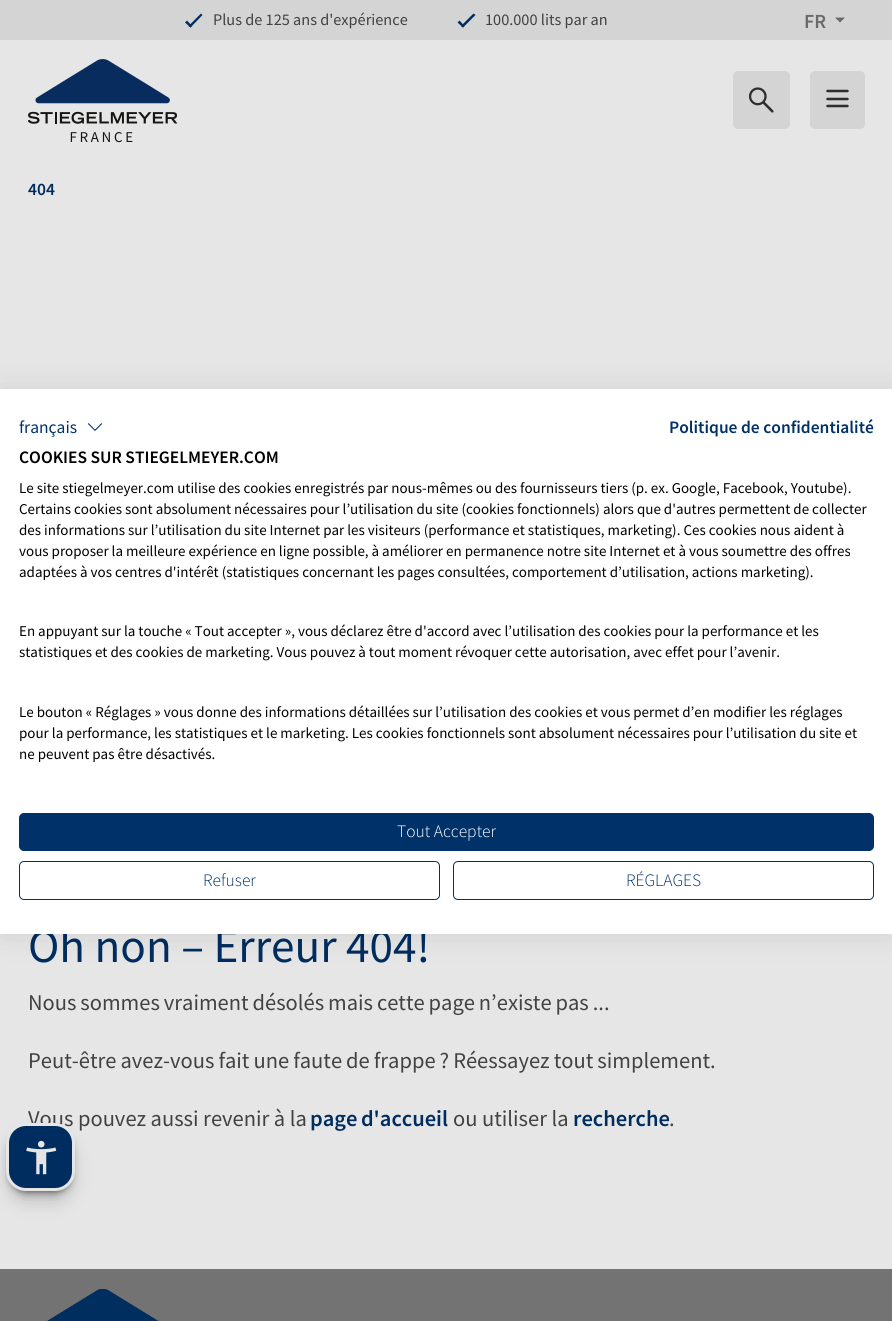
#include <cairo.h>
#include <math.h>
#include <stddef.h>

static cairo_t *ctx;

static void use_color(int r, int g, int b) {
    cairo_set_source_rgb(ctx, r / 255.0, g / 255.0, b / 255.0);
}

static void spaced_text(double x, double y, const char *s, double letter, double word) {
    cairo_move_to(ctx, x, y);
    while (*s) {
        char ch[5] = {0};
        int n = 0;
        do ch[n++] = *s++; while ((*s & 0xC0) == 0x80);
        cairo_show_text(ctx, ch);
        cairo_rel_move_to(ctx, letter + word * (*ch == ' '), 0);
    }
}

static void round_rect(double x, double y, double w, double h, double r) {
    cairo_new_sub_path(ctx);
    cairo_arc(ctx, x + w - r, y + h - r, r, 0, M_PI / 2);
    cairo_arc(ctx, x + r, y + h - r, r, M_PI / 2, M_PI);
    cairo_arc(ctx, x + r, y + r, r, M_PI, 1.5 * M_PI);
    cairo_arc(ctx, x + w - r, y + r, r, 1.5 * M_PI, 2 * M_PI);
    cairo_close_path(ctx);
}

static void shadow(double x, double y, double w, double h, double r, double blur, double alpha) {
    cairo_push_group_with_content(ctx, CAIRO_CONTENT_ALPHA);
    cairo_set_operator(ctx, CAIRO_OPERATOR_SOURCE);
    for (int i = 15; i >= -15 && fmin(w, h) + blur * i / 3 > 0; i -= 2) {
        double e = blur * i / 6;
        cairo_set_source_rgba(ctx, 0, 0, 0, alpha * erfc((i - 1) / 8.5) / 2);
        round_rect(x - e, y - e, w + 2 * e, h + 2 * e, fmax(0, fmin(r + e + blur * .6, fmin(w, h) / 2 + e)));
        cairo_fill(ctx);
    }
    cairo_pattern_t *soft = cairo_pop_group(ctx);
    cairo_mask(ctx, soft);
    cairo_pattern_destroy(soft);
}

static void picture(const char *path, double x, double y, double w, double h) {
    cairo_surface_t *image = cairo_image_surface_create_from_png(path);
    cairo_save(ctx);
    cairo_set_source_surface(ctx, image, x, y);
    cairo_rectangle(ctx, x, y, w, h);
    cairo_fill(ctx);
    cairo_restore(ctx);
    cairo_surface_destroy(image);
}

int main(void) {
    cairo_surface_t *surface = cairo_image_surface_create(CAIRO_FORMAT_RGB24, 892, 1321);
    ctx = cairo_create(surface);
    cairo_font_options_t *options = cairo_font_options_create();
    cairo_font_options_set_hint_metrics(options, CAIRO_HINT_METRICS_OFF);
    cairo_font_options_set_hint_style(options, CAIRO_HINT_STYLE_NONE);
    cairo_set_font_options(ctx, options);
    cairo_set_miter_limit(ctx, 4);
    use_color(230, 230, 230);
    cairo_paint(ctx);
    use_color(212, 212, 212);
    cairo_rectangle(ctx, 0, 0, 892, 40);
    cairo_fill(ctx);
    use_color(0, 45, 95);
    cairo_new_path(ctx);
    cairo_move_to(ctx, 201, 13.5);
    cairo_line_to(ctx, 202.5, 15);
    cairo_line_to(ctx, 190.5, 27.5);
    cairo_line_to(ctx, 188.5, 26);
    cairo_close_path(ctx);
    cairo_fill(ctx);
    cairo_new_path(ctx);
    cairo_move_to(ctx, 187, 20.5);
    cairo_line_to(ctx, 192, 26);
    cairo_line_to(ctx, 190.5, 27.5);
    cairo_line_to(ctx, 185, 22.5);
    cairo_close_path(ctx);
    cairo_fill(ctx);
    cairo_select_font_face(ctx, "Source Sans Pro", CAIRO_FONT_SLANT_NORMAL, CAIRO_FONT_WEIGHT_NORMAL);
    cairo_set_font_size(ctx, 16.25);
    use_color(66, 66, 66);
    cairo_move_to(ctx, 213, 25);
    cairo_show_text(ctx, "Plus de 125 ans d'expérience");
    use_color(0, 45, 95);
    cairo_new_path(ctx);
    cairo_move_to(ctx, 473.5, 13.5);
    cairo_line_to(ctx, 475.5, 15);
    cairo_line_to(ctx, 463, 27.5);
    cairo_line_to(ctx, 461, 26);
    cairo_close_path(ctx);
    cairo_fill(ctx);
    cairo_new_path(ctx);
    cairo_move_to(ctx, 459.5, 20.5);
    cairo_line_to(ctx, 464.5, 26);
    cairo_line_to(ctx, 463, 27.5);
    cairo_line_to(ctx, 457.5, 22.5);
    cairo_close_path(ctx);
    cairo_fill(ctx);
    use_color(66, 66, 66);
    cairo_move_to(ctx, 485, 25);
    cairo_show_text(ctx, "100.000 lits par an");
    cairo_select_font_face(ctx, "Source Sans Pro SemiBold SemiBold", CAIRO_FONT_SLANT_NORMAL, CAIRO_FONT_WEIGHT_NORMAL);
    cairo_set_font_size(ctx, 20);
    use_color(106, 106, 106);
    cairo_move_to(ctx, 804, 28);
    cairo_show_text(ctx, "FR");
    cairo_new_path(ctx);
    cairo_move_to(ctx, 835, 17.5);
    cairo_line_to(ctx, 845, 17.5);
    cairo_line_to(ctx, 840, 22.5);
    cairo_close_path(ctx);
    cairo_fill(ctx);
    picture("img1.png", 28, 59, 150, 84);
    use_color(212, 212, 212);
    round_rect(733, 71, 57, 58, 5);
    cairo_fill(ctx);
    picture("img2.png", 748, 87, 26, 26);
    round_rect(810, 71, 55, 58, 5);
    cairo_fill(ctx);
    cairo_new_path(ctx);
    cairo_move_to(ctx, 827.5, 106);
    cairo_line_to(ctx, 847.5, 106);
    cairo_move_to(ctx, 827.5, 99);
    cairo_line_to(ctx, 847.5, 99);
    cairo_move_to(ctx, 827.5, 91);
    cairo_line_to(ctx, 847.5, 91);
    use_color(46, 46, 46);
    cairo_set_line_width(ctx, 2.5);
    cairo_set_line_cap(ctx, CAIRO_LINE_CAP_ROUND);
    cairo_stroke(ctx);
    cairo_set_font_size(ctx, 17.5);
    use_color(0, 45, 95);
    cairo_move_to(ctx, 28, 195);
    cairo_show_text(ctx, "404");
    cairo_select_font_face(ctx, "Source Sans Pro", CAIRO_FONT_SLANT_NORMAL, CAIRO_FONT_WEIGHT_NORMAL);
    cairo_set_font_size(ctx, 47.25);
    cairo_move_to(ctx, 28, 962);
    cairo_show_text(ctx, "Oh non – Erreur 404!");
    cairo_set_font_size(ctx, 22.5);
    use_color(66, 66, 66);
    spaced_text(28, 1010, "Nous sommes vraiment désolés mais cette page n’existe pas ...", 0, -0.6);
    spaced_text(28, 1068, "Peut-être avez-vous fait une faute de frappe ? Réessayez tout simplement.", 0, -0.5);
    cairo_move_to(ctx, 28, 1126);
    cairo_show_text(ctx, "Vous pouvez aussi revenir à la");
    cairo_select_font_face(ctx, "Source Sans Pro SemiBold SemiBold", CAIRO_FONT_SLANT_NORMAL, CAIRO_FONT_WEIGHT_NORMAL);
    use_color(0, 45, 95);
    spaced_text(310, 1126, "page d'accueil", 0, -1);
    cairo_select_font_face(ctx, "Source Sans Pro", CAIRO_FONT_SLANT_NORMAL, CAIRO_FONT_WEIGHT_NORMAL);
    use_color(66, 66, 66);
    cairo_move_to(ctx, 453, 1126);
    cairo_show_text(ctx, "ou utiliser la");
    cairo_select_font_face(ctx, "Source Sans Pro SemiBold SemiBold", CAIRO_FONT_SLANT_NORMAL, CAIRO_FONT_WEIGHT_NORMAL);
    use_color(0, 45, 95);
    cairo_move_to(ctx, 573, 1126);
    cairo_show_text(ctx, "recherche");
    cairo_select_font_face(ctx, "Source Sans Pro", CAIRO_FONT_SLANT_NORMAL, CAIRO_FONT_WEIGHT_NORMAL);
    use_color(66, 66, 66);
    cairo_move_to(ctx, 669, 1126);
    cairo_show_text(ctx, ".");
    use_color(0, 0, 0);
    shadow(11, 1133, 59, 58, 15, 4, 0.7);
    shadow(10, 1139, 61, 61, 16, 9.5, 0.2);
    use_color(0, 45, 95);
    round_rect(7.5, 1124.5, 66, 65, 18.5);
    cairo_fill_preserve(ctx);
    use_color(230, 230, 230);
    cairo_set_line_width(ctx, 3);
    cairo_set_line_cap(ctx, CAIRO_LINE_CAP_BUTT);
    cairo_stroke(ctx);
    picture("img3.png", 26, 1140, 31, 35);
    use_color(115, 115, 115);
    cairo_rectangle(ctx, 0, 1269, 892, 52);
    cairo_fill(ctx);
    picture("img4.png", 47, 1289, 112, 32);
    use_color(0, 0, 0);
    shadow(0, 389, 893, 545, 0, 15, 0.1);
    use_color(255, 255, 255);
    cairo_rectangle(ctx, 0, 389, 892, 545);
    cairo_fill(ctx);
    cairo_set_font_size(ctx, 17.5);
    use_color(0, 50, 105);
    cairo_move_to(ctx, 19, 433);
    cairo_show_text(ctx, "français");
    picture("img5.png", 87, 423, 16, 8);
    cairo_select_font_face(ctx, "Source Sans Pro SemiBold SemiBold", CAIRO_FONT_SLANT_NORMAL, CAIRO_FONT_WEIGHT_NORMAL);
    cairo_move_to(ctx, 669, 433);
    cairo_show_text(ctx, "Politique de confidentialité");
    use_color(0, 0, 0);
    cairo_move_to(ctx, 19, 463);
    cairo_show_text(ctx, "COOKIES SUR STIEGELMEYER.COM");
    cairo_select_font_face(ctx, "Source Sans Pro", CAIRO_FONT_SLANT_NORMAL, CAIRO_FONT_WEIGHT_NORMAL);
    cairo_set_font_size(ctx, 15);
    cairo_move_to(ctx, 19, 493);
    cairo_show_text(ctx, "Le site stiegelmeyer.com utilise des cookies enregistrés par nous-mêmes ou des fournisseurs tiers (p. ex. Google, Facebook, Youtube).");
    cairo_move_to(ctx, 19, 514);
    cairo_show_text(ctx, "Certains cookies sont absolument nécessaires pour l’utilisation du site (cookies fonctionnels) alors que d'autres permettent de collecter");
    cairo_move_to(ctx, 19, 535);
    cairo_show_text(ctx, "des informations sur l’utilisation du site Internet par les visiteurs (performance et statistiques, marketing). Ces cookies nous aident à");
    cairo_move_to(ctx, 19, 556);
    cairo_show_text(ctx, "vous proposer la meilleure expérience en ligne possible, à améliorer en permanence notre site Internet et à vous soumettre des offres");
    cairo_move_to(ctx, 19, 577);
    cairo_show_text(ctx, "adaptées à vos centres d'intérêt (statistiques concernant les pages consultées, comportement d’utilisation, actions marketing).");
    cairo_move_to(ctx, 19, 636);
    cairo_show_text(ctx, "En appuyant sur la touche « Tout accepter », vous déclarez être d'accord avec l’utilisation des cookies pour la performance et les");
    cairo_move_to(ctx, 19, 657);
    cairo_show_text(ctx, "statistiques et des cookies de marketing. Vous pouvez à tout moment révoquer cette autorisation, avec effet pour l’avenir.");
    cairo_move_to(ctx, 19, 717);
    cairo_show_text(ctx, "Le bouton « Réglages » vous donne des informations détaillées sur l’utilisation des cookies et vous permet d’en modifier les réglages");
    cairo_move_to(ctx, 19, 738);
    cairo_show_text(ctx, "pour la performance, les statistiques et le marketing. Les cookies fonctionnels sont absolument nécessaires pour l’utilisation du site et");
    cairo_move_to(ctx, 19, 759);
    cairo_show_text(ctx, "ne peuvent pas être désactivés.");
    use_color(0, 50, 105);
    round_rect(19.5, 813.5, 854, 37, 4.5);
    cairo_fill_preserve(ctx);
    cairo_set_line_width(ctx, 1);
    cairo_stroke(ctx);
    cairo_select_font_face(ctx, "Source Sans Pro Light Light", CAIRO_FONT_SLANT_NORMAL, CAIRO_FONT_WEIGHT_NORMAL);
    cairo_set_font_size(ctx, 17.5);
    use_color(255, 255, 255);
    cairo_move_to(ctx, 397, 837);
    cairo_show_text(ctx, "Tout Accepter");
    round_rect(19.5, 861.5, 420, 38, 4.5);
    use_color(0, 50, 105);
    cairo_stroke(ctx);
    cairo_move_to(ctx, 203, 886);
    cairo_show_text(ctx, "Refuser");
    round_rect(453.5, 861.5, 420, 38, 4.5);
    cairo_stroke(ctx);
    cairo_move_to(ctx, 626, 886);
    cairo_show_text(ctx, "RÉGLAGES");
    cairo_surface_write_to_png(surface, "result.png");
    cairo_font_options_destroy(options);
    cairo_destroy(ctx);
    cairo_surface_destroy(surface);
    return 0;
}
